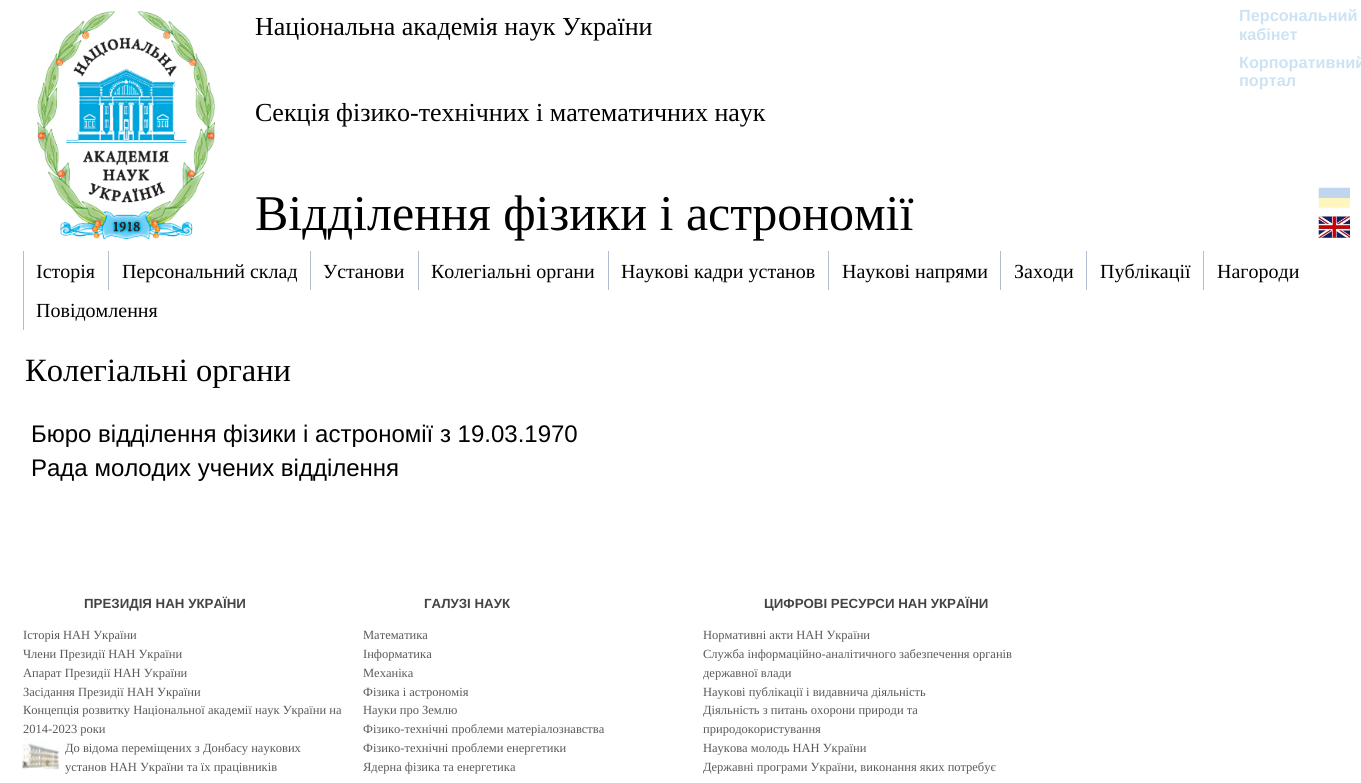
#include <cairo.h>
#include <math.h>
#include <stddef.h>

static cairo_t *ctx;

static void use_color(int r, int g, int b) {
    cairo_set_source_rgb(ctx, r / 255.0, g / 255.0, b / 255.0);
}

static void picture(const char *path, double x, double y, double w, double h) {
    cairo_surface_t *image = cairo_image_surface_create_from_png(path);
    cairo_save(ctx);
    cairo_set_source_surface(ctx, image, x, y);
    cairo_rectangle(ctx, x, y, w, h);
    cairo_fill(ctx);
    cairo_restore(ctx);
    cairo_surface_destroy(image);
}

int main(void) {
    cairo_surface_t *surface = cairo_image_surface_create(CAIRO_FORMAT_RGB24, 1361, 783);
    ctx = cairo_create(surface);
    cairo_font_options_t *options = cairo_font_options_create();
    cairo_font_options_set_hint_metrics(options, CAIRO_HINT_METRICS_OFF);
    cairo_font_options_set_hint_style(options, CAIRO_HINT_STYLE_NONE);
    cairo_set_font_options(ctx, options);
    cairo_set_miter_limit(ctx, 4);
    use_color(255, 255, 255);
    cairo_paint(ctx);
    picture("img1.png", 37, 11, 178, 228);
    cairo_select_font_face(ctx, "Liberation Serif", CAIRO_FONT_SLANT_NORMAL, CAIRO_FONT_WEIGHT_NORMAL);
    cairo_set_font_size(ctx, 26);
    use_color(0, 0, 0);
    cairo_move_to(ctx, 255, 35);
    cairo_show_text(ctx, "Національна академія наук України");
    cairo_select_font_face(ctx, "Liberation Sans", CAIRO_FONT_SLANT_NORMAL, CAIRO_FONT_WEIGHT_BOLD);
    cairo_set_font_size(ctx, 16.25);
    use_color(204, 227, 244);
    cairo_move_to(ctx, 1239, 21);
    cairo_show_text(ctx, "Персональний");
    cairo_move_to(ctx, 1239, 40);
    cairo_show_text(ctx, "кабінет");
    cairo_move_to(ctx, 1239, 68);
    cairo_show_text(ctx, "Корпоративний");
    cairo_move_to(ctx, 1239, 86);
    cairo_show_text(ctx, "портал");
    cairo_select_font_face(ctx, "Liberation Serif", CAIRO_FONT_SLANT_NORMAL, CAIRO_FONT_WEIGHT_NORMAL);
    cairo_set_font_size(ctx, 26);
    use_color(0, 0, 0);
    cairo_move_to(ctx, 255, 121);
    cairo_show_text(ctx, "Секція фізико-технічних і математичних наук");
    picture("img2.png", 1318, 187, 32, 21);
    picture("img3.png", 1318, 216, 32, 22);
    cairo_set_font_size(ctx, 50);
    cairo_move_to(ctx, 255, 230);
    cairo_show_text(ctx, "Відділення фізики і астрономії");
    use_color(178, 189, 211);
    cairo_rectangle(ctx, 23, 251, 1, 79);
    cairo_fill(ctx);
    cairo_set_font_size(ctx, 20);
    use_color(0, 0, 0);
    cairo_move_to(ctx, 36, 278);
    cairo_show_text(ctx, "Історія");
    use_color(178, 189, 211);
    cairo_rectangle(ctx, 108, 251, 1, 39);
    cairo_fill(ctx);
    use_color(0, 0, 0);
    cairo_move_to(ctx, 122, 278);
    cairo_show_text(ctx, "Персональний склад");
    use_color(178, 189, 211);
    cairo_rectangle(ctx, 310, 251, 1, 39);
    cairo_fill(ctx);
    use_color(0, 0, 0);
    cairo_move_to(ctx, 323, 278);
    cairo_show_text(ctx, "Установи");
    use_color(178, 189, 211);
    cairo_rectangle(ctx, 418, 251, 1, 39);
    cairo_fill(ctx);
    use_color(0, 0, 0);
    cairo_move_to(ctx, 431, 278);
    cairo_show_text(ctx, "Колегіальні органи");
    use_color(178, 189, 211);
    cairo_rectangle(ctx, 608, 251, 1, 39);
    cairo_fill(ctx);
    use_color(0, 0, 0);
    cairo_move_to(ctx, 621, 278);
    cairo_show_text(ctx, "Наукові кадри установ");
    use_color(178, 189, 211);
    cairo_rectangle(ctx, 828, 251, 1, 39);
    cairo_fill(ctx);
    use_color(0, 0, 0);
    cairo_move_to(ctx, 842, 278);
    cairo_show_text(ctx, "Наукові напрями");
    use_color(178, 189, 211);
    cairo_rectangle(ctx, 1000, 251, 1, 39);
    cairo_fill(ctx);
    use_color(0, 0, 0);
    cairo_move_to(ctx, 1014, 278);
    cairo_show_text(ctx, "Заходи");
    use_color(178, 189, 211);
    cairo_rectangle(ctx, 1086, 251, 1, 39);
    cairo_fill(ctx);
    use_color(0, 0, 0);
    cairo_move_to(ctx, 1100, 278);
    cairo_show_text(ctx, "Публікації");
    use_color(178, 189, 211);
    cairo_rectangle(ctx, 1203, 251, 1, 39);
    cairo_fill(ctx);
    use_color(0, 0, 0);
    cairo_move_to(ctx, 1217, 278);
    cairo_show_text(ctx, "Нагороди");
    cairo_move_to(ctx, 36, 317);
    cairo_show_text(ctx, "Повідомлення");
    cairo_set_font_size(ctx, 32.5);
    cairo_move_to(ctx, 25, 381);
    cairo_show_text(ctx, "Колегіальні органи");
    cairo_select_font_face(ctx, "Liberation Sans", CAIRO_FONT_SLANT_NORMAL, CAIRO_FONT_WEIGHT_NORMAL);
    cairo_set_font_size(ctx, 24);
    cairo_move_to(ctx, 31, 442);
    cairo_show_text(ctx, "Бюро відділення фізики і астрономії з 19.03.1970");
    cairo_move_to(ctx, 31, 476);
    cairo_show_text(ctx, "Рада молодих учених відділення");
    cairo_select_font_face(ctx, "Liberation Sans", CAIRO_FONT_SLANT_NORMAL, CAIRO_FONT_WEIGHT_BOLD);
    cairo_set_font_size(ctx, 13.3);
    use_color(68, 68, 68);
    cairo_move_to(ctx, 84, 608);
    cairo_show_text(ctx, "ПРЕЗИДІЯ НАН УКРАЇНИ");
    cairo_select_font_face(ctx, "Liberation Serif", CAIRO_FONT_SLANT_NORMAL, CAIRO_FONT_WEIGHT_NORMAL);
    cairo_set_font_size(ctx, 12.5);
    use_color(89, 89, 89);
    cairo_move_to(ctx, 23, 639);
    cairo_show_text(ctx, "Історія НАН України");
    cairo_move_to(ctx, 23, 658);
    cairo_show_text(ctx, "Члени Президії НАН України");
    cairo_move_to(ctx, 23, 677);
    cairo_show_text(ctx, "Апарат Президії НАН України");
    cairo_move_to(ctx, 23, 696);
    cairo_show_text(ctx, "Засідання Президії НАН України");
    cairo_move_to(ctx, 23, 714);
    cairo_show_text(ctx, "Концепція розвитку Національної академії наук України на");
    cairo_move_to(ctx, 23, 733);
    cairo_show_text(ctx, "2014-2023 роки");
    picture("img4.png", 22, 738, 37, 32);
    cairo_move_to(ctx, 65, 752);
    cairo_show_text(ctx, "До відома переміщених з Донбасу наукових");
    cairo_move_to(ctx, 65, 771);
    cairo_show_text(ctx, "установ НАН України та їх працівників");
    cairo_select_font_face(ctx, "Liberation Sans", CAIRO_FONT_SLANT_NORMAL, CAIRO_FONT_WEIGHT_BOLD);
    cairo_set_font_size(ctx, 13.3);
    use_color(68, 68, 68);
    cairo_move_to(ctx, 424, 608);
    cairo_show_text(ctx, "ГАЛУЗІ НАУК");
    cairo_select_font_face(ctx, "Liberation Serif", CAIRO_FONT_SLANT_NORMAL, CAIRO_FONT_WEIGHT_NORMAL);
    cairo_set_font_size(ctx, 12.5);
    use_color(89, 89, 89);
    cairo_move_to(ctx, 363, 639);
    cairo_show_text(ctx, "Математика");
    cairo_move_to(ctx, 363, 658);
    cairo_show_text(ctx, "Інформатика");
    cairo_move_to(ctx, 363, 677);
    cairo_show_text(ctx, "Механіка");
    cairo_move_to(ctx, 363, 696);
    cairo_show_text(ctx, "Фізика і астрономія");
    cairo_move_to(ctx, 363, 714);
    cairo_show_text(ctx, "Науки про Землю");
    cairo_move_to(ctx, 363, 733);
    cairo_show_text(ctx, "Фізико-технічні проблеми матеріалознавства");
    cairo_move_to(ctx, 363, 752);
    cairo_show_text(ctx, "Фізико-технічні проблеми енергетики");
    cairo_move_to(ctx, 363, 771);
    cairo_show_text(ctx, "Ядерна фізика та енергетика");
    cairo_select_font_face(ctx, "Liberation Sans", CAIRO_FONT_SLANT_NORMAL, CAIRO_FONT_WEIGHT_BOLD);
    cairo_set_font_size(ctx, 13.3);
    use_color(68, 68, 68);
    cairo_move_to(ctx, 764, 608);
    cairo_show_text(ctx, "ЦИФРОВІ РЕСУРСИ НАН УКРАЇНИ");
    cairo_select_font_face(ctx, "Liberation Serif", CAIRO_FONT_SLANT_NORMAL, CAIRO_FONT_WEIGHT_NORMAL);
    cairo_set_font_size(ctx, 12.5);
    use_color(89, 89, 89);
    cairo_move_to(ctx, 703, 639);
    cairo_show_text(ctx, "Нормативні акти НАН України");
    cairo_move_to(ctx, 703, 658);
    cairo_show_text(ctx, "Служба інформаційно-аналітичного забезпечення органів");
    cairo_move_to(ctx, 703, 677);
    cairo_show_text(ctx, "державної влади");
    cairo_move_to(ctx, 703, 696);
    cairo_show_text(ctx, "Наукові публікації і видавнича діяльність");
    cairo_move_to(ctx, 703, 714);
    cairo_show_text(ctx, "Діяльність з питань охорони природи та");
    cairo_move_to(ctx, 703, 733);
    cairo_show_text(ctx, "природокористування");
    cairo_move_to(ctx, 703, 752);
    cairo_show_text(ctx, "Наукова молодь НАН України");
    cairo_move_to(ctx, 703, 771);
    cairo_show_text(ctx, "Державні програми України, виконання яких потребує");
    cairo_surface_write_to_png(surface, "result.png");
    cairo_font_options_destroy(options);
    cairo_destroy(ctx);
    cairo_surface_destroy(surface);
    return 0;
}
